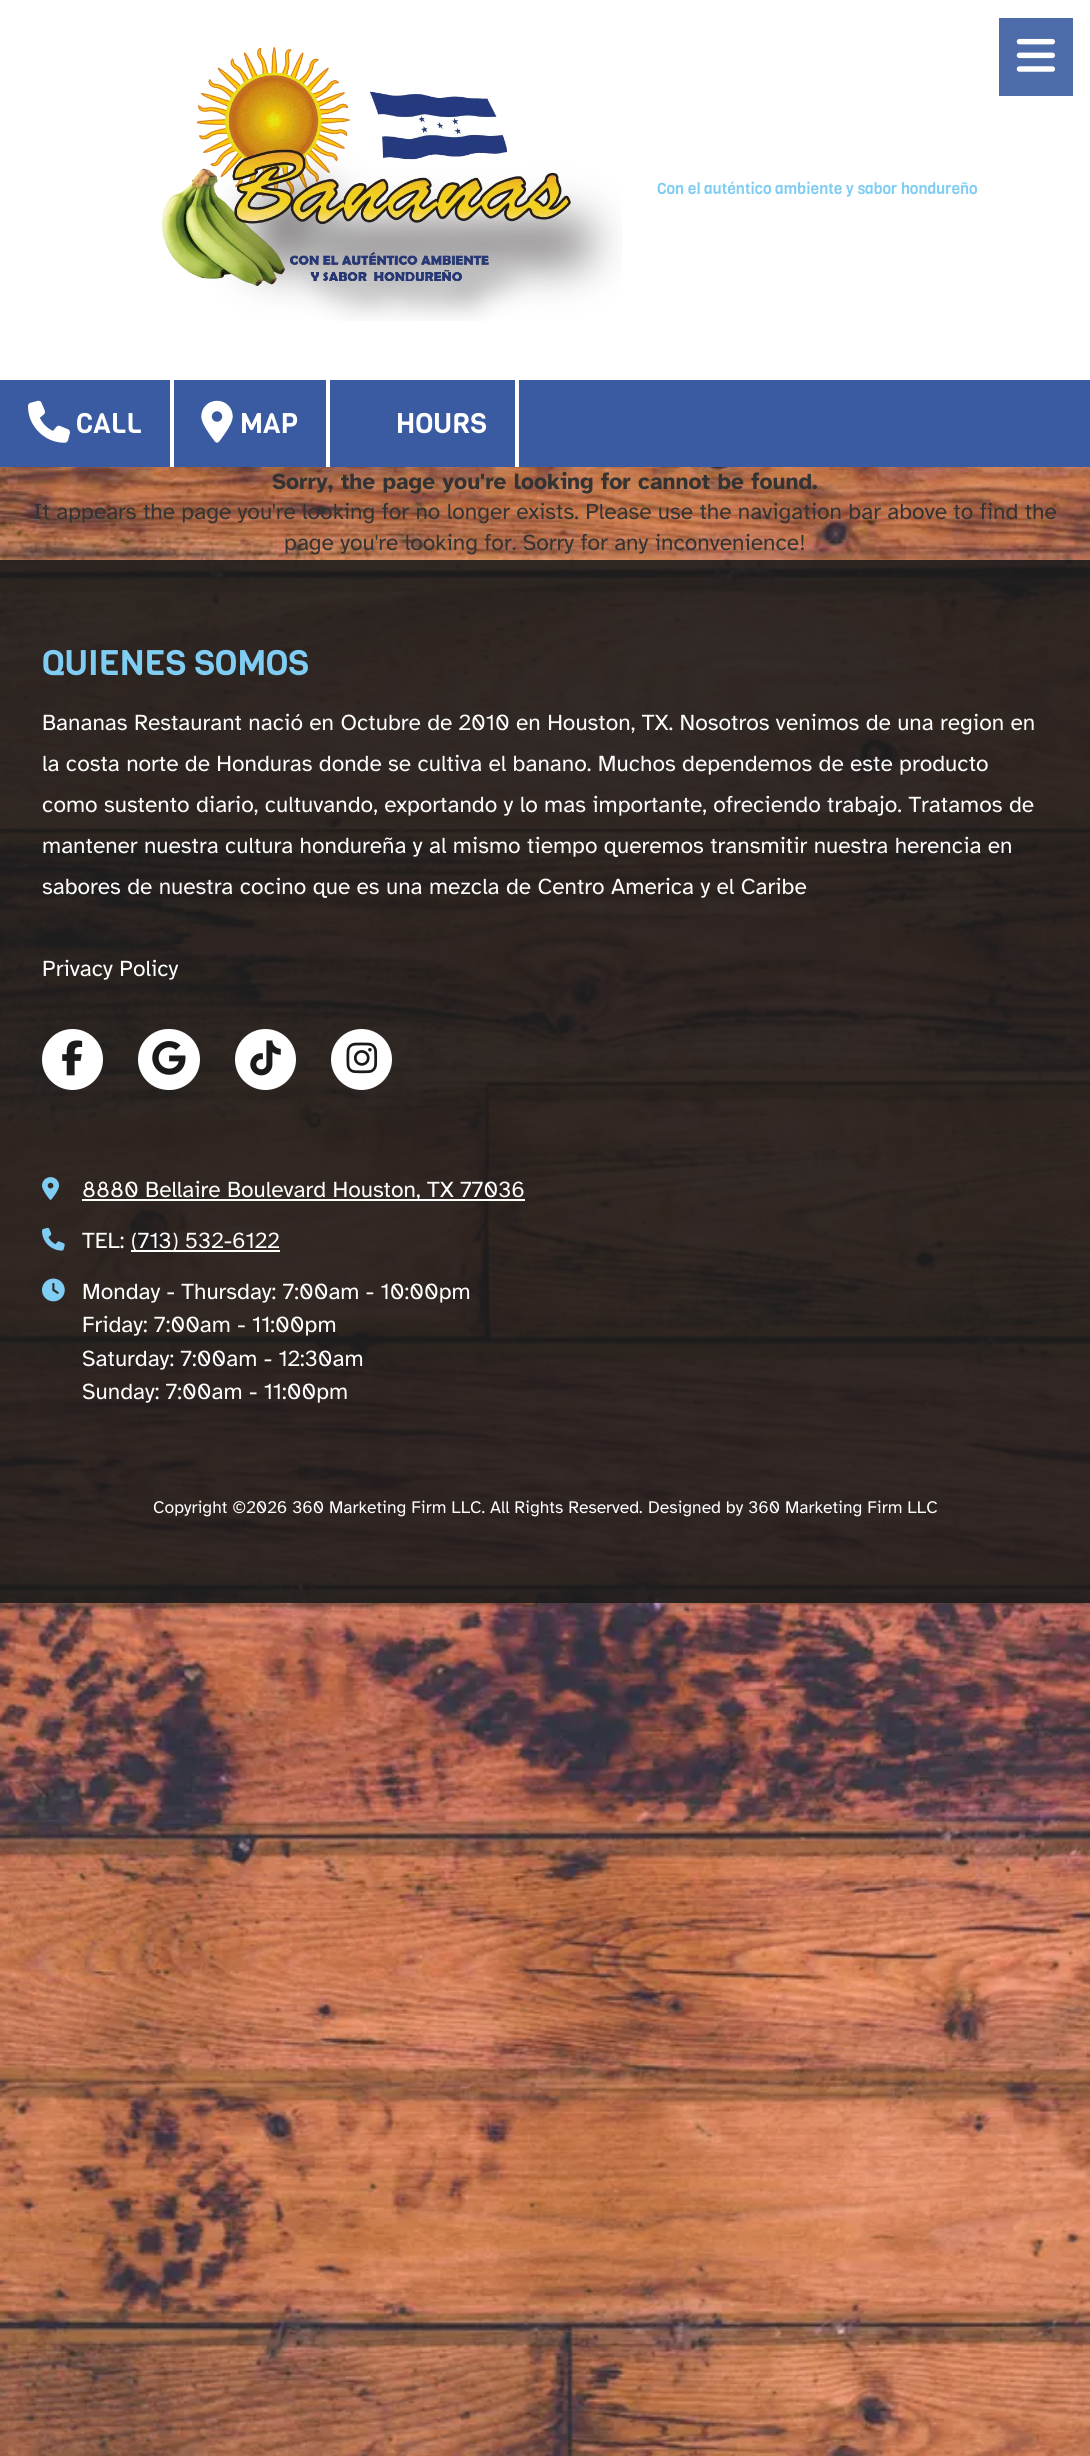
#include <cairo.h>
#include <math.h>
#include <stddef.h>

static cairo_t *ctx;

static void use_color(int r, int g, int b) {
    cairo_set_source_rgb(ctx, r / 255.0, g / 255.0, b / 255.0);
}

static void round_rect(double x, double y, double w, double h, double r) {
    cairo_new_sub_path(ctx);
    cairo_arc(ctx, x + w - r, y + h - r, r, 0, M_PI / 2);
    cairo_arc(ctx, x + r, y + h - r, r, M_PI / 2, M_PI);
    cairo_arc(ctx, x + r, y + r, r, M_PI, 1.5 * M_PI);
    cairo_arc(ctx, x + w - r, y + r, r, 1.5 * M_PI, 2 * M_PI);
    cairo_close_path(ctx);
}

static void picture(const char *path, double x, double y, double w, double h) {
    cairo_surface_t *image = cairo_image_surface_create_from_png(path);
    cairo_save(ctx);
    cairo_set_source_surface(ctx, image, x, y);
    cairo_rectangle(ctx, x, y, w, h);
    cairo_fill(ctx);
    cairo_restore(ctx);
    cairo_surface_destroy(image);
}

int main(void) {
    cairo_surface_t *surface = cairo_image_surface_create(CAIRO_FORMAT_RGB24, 1090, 2456);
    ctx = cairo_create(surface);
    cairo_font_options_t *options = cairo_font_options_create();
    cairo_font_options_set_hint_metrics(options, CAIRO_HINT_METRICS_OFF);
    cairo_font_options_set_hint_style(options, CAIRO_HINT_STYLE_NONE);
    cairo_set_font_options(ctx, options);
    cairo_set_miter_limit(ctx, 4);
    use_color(255, 255, 255);
    cairo_paint(ctx);
    use_color(78, 107, 170);
    cairo_rectangle(ctx, 999, 18, 74, 78);
    cairo_fill(ctx);
    picture("img1.png", 1016, 38, 39, 34);
    picture("img2.png", 162, 46, 460, 275);
    cairo_select_font_face(ctx, "Viga", CAIRO_FONT_SLANT_NORMAL, CAIRO_FONT_WEIGHT_NORMAL);
    cairo_set_font_size(ctx, 15.75);
    use_color(128, 205, 243);
    cairo_move_to(ctx, 657, 194);
    cairo_show_text(ctx, "Con el auténtico ambiente y sabor hondureño");
    use_color(58, 90, 161);
    cairo_rectangle(ctx, 0, 380, 1090, 87);
    cairo_fill(ctx);
    use_color(255, 255, 255);
    cairo_rectangle(ctx, 170, 380, 4, 87);
    cairo_fill(ctx);
    picture("img3.png", 28, 400, 42, 43);
    cairo_set_font_size(ctx, 28);
    cairo_move_to(ctx, 76, 433);
    cairo_show_text(ctx, "CALL");
    cairo_rectangle(ctx, 326, 380, 4, 87);
    cairo_fill(ctx);
    picture("img4.png", 201, 400, 32, 43);
    cairo_move_to(ctx, 240, 433);
    cairo_show_text(ctx, "MAP");
    cairo_rectangle(ctx, 515, 380, 4, 87);
    cairo_fill(ctx);
    cairo_move_to(ctx, 396, 433);
    cairo_show_text(ctx, "HOURS");
    picture("img12.png", 0, 467, 1090, 1989);
    cairo_select_font_face(ctx, "Atkinson Hyperlegible", CAIRO_FONT_SLANT_NORMAL, CAIRO_FONT_WEIGHT_BOLD);
    cairo_set_font_size(ctx, 22.75);
    use_color(51, 51, 51);
    cairo_move_to(ctx, 272, 489);
    cairo_show_text(ctx, "Sorry, the page you're looking for cannot be found.");
    cairo_select_font_face(ctx, "Atkinson Hyperlegible", CAIRO_FONT_SLANT_NORMAL, CAIRO_FONT_WEIGHT_NORMAL);
    cairo_move_to(ctx, 33, 519);
    cairo_show_text(ctx, "It appears the page you're looking for no longer exists. Please use the navigation bar above to find the");
    cairo_move_to(ctx, 284, 550);
    cairo_show_text(ctx, "page you're looking for. Sorry for any inconvenience!");
    cairo_set_source_rgba(ctx, 0.102, 0.102, 0.102, 0.89);
    cairo_rectangle(ctx, 0, 560, 1090, 1043);
    cairo_fill(ctx);
    cairo_select_font_face(ctx, "Viga", CAIRO_FONT_SLANT_NORMAL, CAIRO_FONT_WEIGHT_NORMAL);
    cairo_set_font_size(ctx, 35);
    use_color(128, 205, 243);
    cairo_move_to(ctx, 42, 675);
    cairo_show_text(ctx, "QUIENES SOMOS");
    cairo_select_font_face(ctx, "Atkinson Hyperlegible", CAIRO_FONT_SLANT_NORMAL, CAIRO_FONT_WEIGHT_NORMAL);
    cairo_set_font_size(ctx, 22.75);
    use_color(255, 255, 255);
    cairo_move_to(ctx, 42, 730);
    cairo_show_text(ctx, "Bananas Restaurant nació en Octubre de 2010 en Houston, TX. Nosotros venimos de una region en");
    cairo_move_to(ctx, 42, 771);
    cairo_show_text(ctx, "la costa norte de Honduras donde se cultiva el banano. Muchos dependemos de este producto");
    cairo_move_to(ctx, 42, 812);
    cairo_show_text(ctx, "como sustento diario, cultuvando, exportando y lo mas importante, ofreciendo trabajo. Tratamos de");
    cairo_move_to(ctx, 42, 853);
    cairo_show_text(ctx, "mantener nuestra cultura hondureña y al mismo tiempo queremos transmitir nuestra herencia en");
    cairo_move_to(ctx, 42, 894);
    cairo_show_text(ctx, "sabores de nuestra cocino que es una mezcla de Centro America y el Caribe");
    cairo_move_to(ctx, 42, 976);
    cairo_show_text(ctx, "Privacy Policy");
    cairo_new_path(ctx);
    cairo_arc(ctx, 72.5, 1059.5, 30.5, 0, 2 * M_PI);
    cairo_fill(ctx);
    picture("img5.png", 62, 1040, 21, 36);
    round_rect(138, 1029, 62, 61, 30.5);
    cairo_fill(ctx);
    picture("img6.png", 152, 1041, 34, 34);
    cairo_arc(ctx, 265.5, 1059.5, 30.5, 0, 2 * M_PI);
    cairo_fill(ctx);
    picture("img7.png", 250, 1040, 31, 36);
    cairo_arc(ctx, 361.5, 1059.5, 30.5, 0, 2 * M_PI);
    cairo_fill(ctx);
    picture("img8.png", 346, 1042, 32, 32);
    picture("img9.png", 42, 1177, 18, 23);
    cairo_rectangle(ctx, 82, 1199, 443, 2);
    cairo_fill(ctx);
    cairo_move_to(ctx, 82, 1197);
    cairo_show_text(ctx, "8880 Bellaire Boulevard Houston, TX 77036");
    picture("img10.png", 42, 1227, 23, 24);
    cairo_move_to(ctx, 82, 1248);
    cairo_show_text(ctx, "TEL:");
    cairo_rectangle(ctx, 131, 1250, 149, 2);
    cairo_fill(ctx);
    cairo_move_to(ctx, 131, 1248);
    cairo_show_text(ctx, "(713) 532-6122");
    picture("img11.png", 42, 1278, 23, 24);
    cairo_move_to(ctx, 82, 1299);
    cairo_show_text(ctx, "Monday - Thursday: 7:00am - 10:00pm");
    cairo_move_to(ctx, 82, 1332);
    cairo_show_text(ctx, "Friday: 7:00am - 11:00pm");
    cairo_move_to(ctx, 82, 1366);
    cairo_show_text(ctx, "Saturday: 7:00am - 12:30am");
    cairo_move_to(ctx, 82, 1399);
    cairo_show_text(ctx, "Sunday: 7:00am - 11:00pm");
    cairo_set_font_size(ctx, 17.5);
    cairo_move_to(ctx, 153, 1513);
    cairo_show_text(ctx, "Copyright ©2026 360 Marketing Firm LLC. All Rights Reserved.");
    cairo_move_to(ctx, 648, 1513);
    cairo_show_text(ctx, "Designed by 360 Marketing Firm LLC");
    cairo_surface_write_to_png(surface, "result.png");
    cairo_font_options_destroy(options);
    cairo_destroy(ctx);
    cairo_surface_destroy(surface);
    return 0;
}
